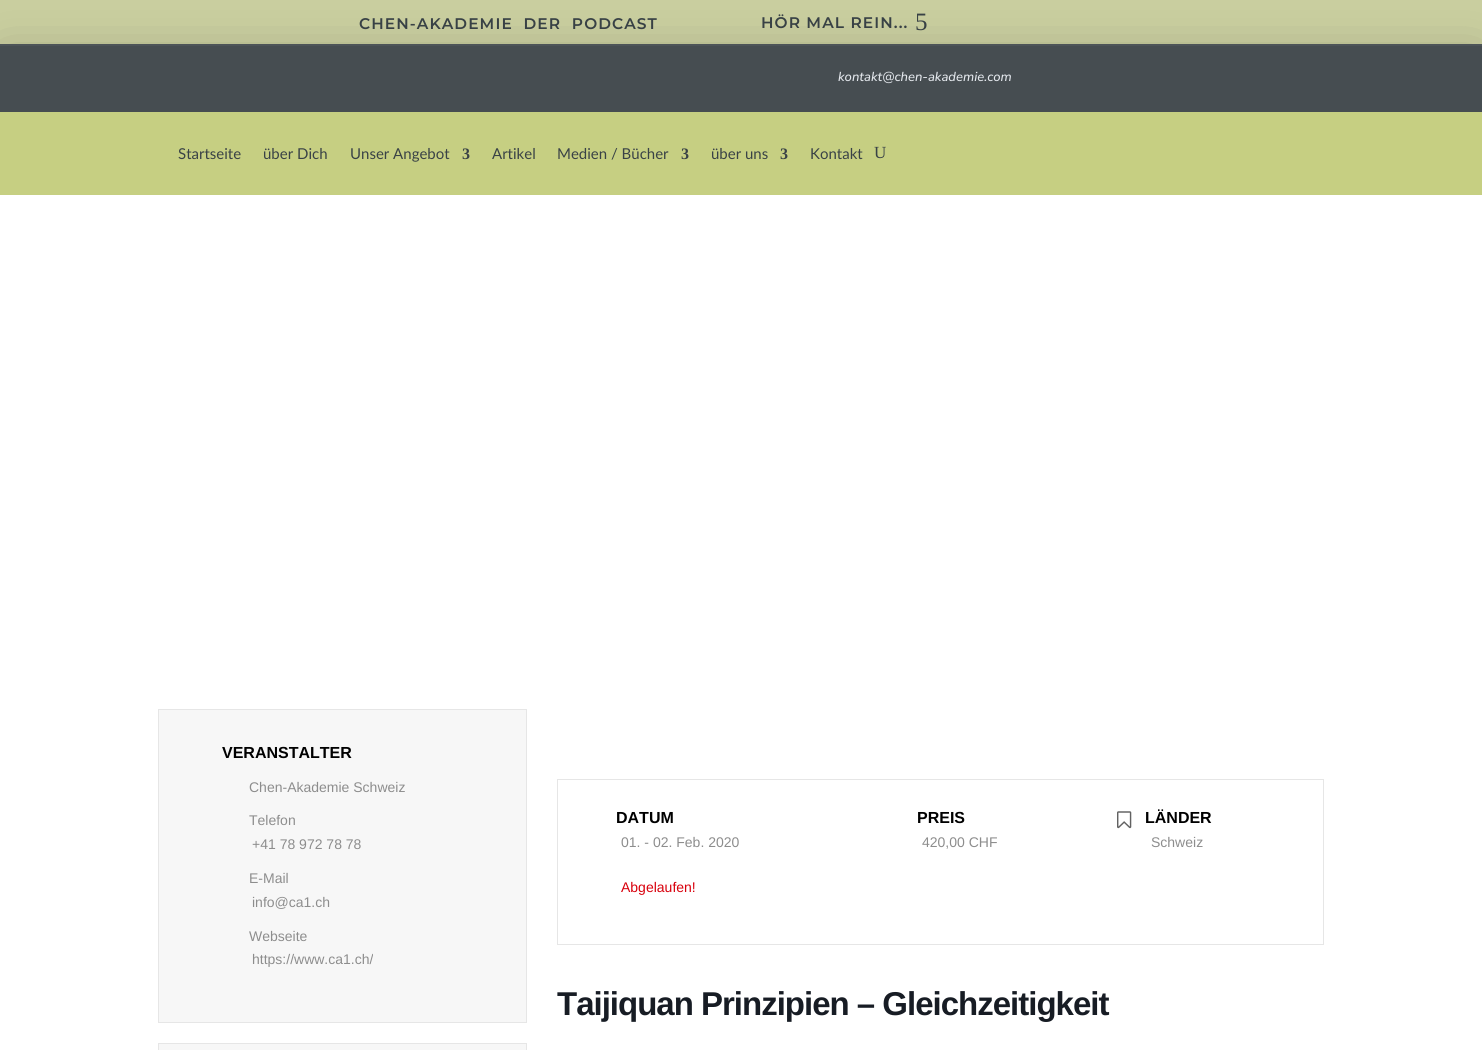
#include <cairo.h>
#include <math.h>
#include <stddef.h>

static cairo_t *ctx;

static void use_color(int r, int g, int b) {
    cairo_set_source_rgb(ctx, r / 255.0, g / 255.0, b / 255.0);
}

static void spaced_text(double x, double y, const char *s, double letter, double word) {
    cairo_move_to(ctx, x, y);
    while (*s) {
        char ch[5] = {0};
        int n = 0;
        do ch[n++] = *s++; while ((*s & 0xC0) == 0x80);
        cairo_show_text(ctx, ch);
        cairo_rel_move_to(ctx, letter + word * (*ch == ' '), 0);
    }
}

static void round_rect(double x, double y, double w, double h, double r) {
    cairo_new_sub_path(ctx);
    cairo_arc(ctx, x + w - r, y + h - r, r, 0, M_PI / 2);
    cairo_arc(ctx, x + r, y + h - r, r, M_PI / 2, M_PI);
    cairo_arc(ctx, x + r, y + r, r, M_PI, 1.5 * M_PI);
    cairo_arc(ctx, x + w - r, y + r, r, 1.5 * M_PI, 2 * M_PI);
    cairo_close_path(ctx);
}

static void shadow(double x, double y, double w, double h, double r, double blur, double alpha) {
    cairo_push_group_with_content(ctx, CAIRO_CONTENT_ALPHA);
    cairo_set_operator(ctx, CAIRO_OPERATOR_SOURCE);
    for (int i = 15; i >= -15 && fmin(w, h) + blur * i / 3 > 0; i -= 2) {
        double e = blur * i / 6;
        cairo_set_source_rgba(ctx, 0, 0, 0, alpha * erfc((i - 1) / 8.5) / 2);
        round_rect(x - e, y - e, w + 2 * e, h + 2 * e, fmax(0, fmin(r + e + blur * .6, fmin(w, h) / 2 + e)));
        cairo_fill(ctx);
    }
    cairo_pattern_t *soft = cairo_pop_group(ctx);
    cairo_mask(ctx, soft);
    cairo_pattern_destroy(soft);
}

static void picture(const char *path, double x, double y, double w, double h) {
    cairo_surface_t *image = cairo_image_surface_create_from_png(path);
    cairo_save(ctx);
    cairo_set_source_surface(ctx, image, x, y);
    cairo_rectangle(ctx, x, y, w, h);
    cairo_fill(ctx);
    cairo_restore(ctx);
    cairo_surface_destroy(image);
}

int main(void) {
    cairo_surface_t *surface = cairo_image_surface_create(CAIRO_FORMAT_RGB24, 1482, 1050);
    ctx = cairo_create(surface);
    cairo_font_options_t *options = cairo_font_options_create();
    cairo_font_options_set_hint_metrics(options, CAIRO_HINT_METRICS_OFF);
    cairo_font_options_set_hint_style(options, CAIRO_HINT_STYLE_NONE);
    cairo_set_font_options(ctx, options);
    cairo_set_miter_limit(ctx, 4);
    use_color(255, 255, 255);
    cairo_paint(ctx);
    use_color(201, 206, 159);
    cairo_rectangle(ctx, 0, 0, 1482, 44);
    cairo_fill(ctx);
    cairo_select_font_face(ctx, "Montserrat SemiBold", CAIRO_FONT_SLANT_NORMAL, CAIRO_FONT_WEIGHT_NORMAL);
    cairo_set_font_size(ctx, 15.4);
    use_color(57, 66, 70);
    spaced_text(359, 29, "CHEN-AKADEMIE  DER  PODCAST", 1.1, 0);
    spaced_text(761, 28, "HÖR MAL REIN...", 1.1, 0);
    cairo_select_font_face(ctx, "Liberation Serif", CAIRO_FONT_SLANT_NORMAL, CAIRO_FONT_WEIGHT_NORMAL);
    cairo_set_font_size(ctx, 25);
    spaced_text(915, 30, "5", 1.1, 0);
    use_color(0, 0, 0);
    shadow(6, 62, 1470, 56, 0, 24, 0.3);
    use_color(70, 77, 81);
    cairo_rectangle(ctx, 0, 46, 1482, 66);
    cairo_fill(ctx);
    use_color(77, 84, 88);
    cairo_rectangle(ctx, 0, 44, 1482, 2);
    cairo_fill(ctx);
    cairo_select_font_face(ctx, "Nunito Sans Medium", CAIRO_FONT_SLANT_ITALIC, CAIRO_FONT_WEIGHT_NORMAL);
    cairo_set_font_size(ctx, 13);
    use_color(228, 232, 237);
    cairo_move_to(ctx, 838, 81);
    cairo_show_text(ctx, "kontakt@chen-akademie.com");
    use_color(198, 207, 130);
    cairo_rectangle(ctx, 0, 112, 1482, 83);
    cairo_fill(ctx);
    cairo_select_font_face(ctx, "Lato", CAIRO_FONT_SLANT_NORMAL, CAIRO_FONT_WEIGHT_NORMAL);
    cairo_set_font_size(ctx, 15);
    use_color(57, 66, 70);
    cairo_move_to(ctx, 178, 159);
    cairo_show_text(ctx, "Startseite");
    cairo_move_to(ctx, 263, 159);
    cairo_show_text(ctx, "über Dich");
    cairo_move_to(ctx, 350, 159);
    cairo_show_text(ctx, "Unser Angebot");
    cairo_select_font_face(ctx, "Liberation Serif", CAIRO_FONT_SLANT_NORMAL, CAIRO_FONT_WEIGHT_BOLD);
    cairo_set_font_size(ctx, 16);
    cairo_move_to(ctx, 462, 159);
    cairo_show_text(ctx, "3");
    cairo_select_font_face(ctx, "Lato", CAIRO_FONT_SLANT_NORMAL, CAIRO_FONT_WEIGHT_NORMAL);
    cairo_set_font_size(ctx, 15);
    cairo_move_to(ctx, 492, 159);
    cairo_show_text(ctx, "Artikel");
    cairo_move_to(ctx, 557, 159);
    cairo_show_text(ctx, "Medien / Bücher");
    cairo_select_font_face(ctx, "Liberation Serif", CAIRO_FONT_SLANT_NORMAL, CAIRO_FONT_WEIGHT_BOLD);
    cairo_set_font_size(ctx, 16);
    cairo_move_to(ctx, 681, 159);
    cairo_show_text(ctx, "3");
    cairo_select_font_face(ctx, "Lato", CAIRO_FONT_SLANT_NORMAL, CAIRO_FONT_WEIGHT_NORMAL);
    cairo_set_font_size(ctx, 15);
    cairo_move_to(ctx, 711, 159);
    cairo_show_text(ctx, "über uns");
    cairo_select_font_face(ctx, "Liberation Serif", CAIRO_FONT_SLANT_NORMAL, CAIRO_FONT_WEIGHT_BOLD);
    cairo_set_font_size(ctx, 16);
    cairo_move_to(ctx, 780, 159);
    cairo_show_text(ctx, "3");
    cairo_select_font_face(ctx, "Lato", CAIRO_FONT_SLANT_NORMAL, CAIRO_FONT_WEIGHT_NORMAL);
    cairo_set_font_size(ctx, 15);
    cairo_move_to(ctx, 810, 159);
    cairo_show_text(ctx, "Kontakt");
    cairo_select_font_face(ctx, "Liberation Serif", CAIRO_FONT_SLANT_NORMAL, CAIRO_FONT_WEIGHT_NORMAL);
    cairo_set_font_size(ctx, 17);
    cairo_move_to(ctx, 874, 158);
    cairo_show_text(ctx, "U");
    use_color(247, 247, 247);
    cairo_rectangle(ctx, 158.5, 709.5, 368, 313);
    cairo_fill_preserve(ctx);
    use_color(230, 230, 230);
    cairo_set_line_width(ctx, 1);
    cairo_stroke(ctx);
    cairo_select_font_face(ctx, "Liberation Sans", CAIRO_FONT_SLANT_NORMAL, CAIRO_FONT_WEIGHT_BOLD);
    cairo_set_font_size(ctx, 16);
    use_color(0, 0, 0);
    cairo_move_to(ctx, 222, 758);
    cairo_show_text(ctx, "VERANSTALTER");
    cairo_select_font_face(ctx, "Liberation Sans", CAIRO_FONT_SLANT_NORMAL, CAIRO_FONT_WEIGHT_NORMAL);
    cairo_set_font_size(ctx, 14);
    use_color(141, 141, 141);
    cairo_move_to(ctx, 249, 792);
    cairo_show_text(ctx, "Chen-Akademie Schweiz");
    cairo_move_to(ctx, 249, 825);
    cairo_show_text(ctx, "Telefon");
    cairo_move_to(ctx, 252, 849);
    cairo_show_text(ctx, "+41 78 972 78 78");
    cairo_move_to(ctx, 249, 883);
    cairo_show_text(ctx, "E-Mail");
    cairo_move_to(ctx, 252, 907);
    cairo_show_text(ctx, "info@ca1.ch");
    cairo_move_to(ctx, 249, 941);
    cairo_show_text(ctx, "Webseite");
    cairo_move_to(ctx, 252, 964);
    cairo_show_text(ctx, "https://www.ca1.ch/");
    use_color(247, 247, 247);
    cairo_rectangle(ctx, 158.5, 1043.5, 368, 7);
    cairo_fill_preserve(ctx);
    use_color(230, 230, 230);
    cairo_stroke(ctx);
    cairo_rectangle(ctx, 557.5, 779.5, 766, 165);
    cairo_stroke(ctx);
    cairo_select_font_face(ctx, "Liberation Sans", CAIRO_FONT_SLANT_NORMAL, CAIRO_FONT_WEIGHT_BOLD);
    cairo_set_font_size(ctx, 16);
    use_color(0, 0, 0);
    cairo_move_to(ctx, 616, 823);
    cairo_show_text(ctx, "DATUM");
    cairo_select_font_face(ctx, "Liberation Sans", CAIRO_FONT_SLANT_NORMAL, CAIRO_FONT_WEIGHT_NORMAL);
    cairo_set_font_size(ctx, 14);
    use_color(141, 141, 141);
    cairo_move_to(ctx, 621, 847);
    cairo_show_text(ctx, "01. - 02. Feb. 2020");
    use_color(216, 0, 12);
    cairo_move_to(ctx, 621, 892);
    cairo_show_text(ctx, "Abgelaufen!");
    cairo_select_font_face(ctx, "Liberation Sans", CAIRO_FONT_SLANT_NORMAL, CAIRO_FONT_WEIGHT_BOLD);
    cairo_set_font_size(ctx, 16);
    use_color(0, 0, 0);
    cairo_move_to(ctx, 917, 823);
    cairo_show_text(ctx, "PREIS");
    cairo_select_font_face(ctx, "Liberation Sans", CAIRO_FONT_SLANT_NORMAL, CAIRO_FONT_WEIGHT_NORMAL);
    cairo_set_font_size(ctx, 14);
    use_color(141, 141, 141);
    cairo_move_to(ctx, 922, 847);
    cairo_show_text(ctx, "420,00 CHF");
    picture("img1.png", 1117, 811, 15, 18);
    cairo_select_font_face(ctx, "Liberation Sans", CAIRO_FONT_SLANT_NORMAL, CAIRO_FONT_WEIGHT_BOLD);
    cairo_set_font_size(ctx, 16);
    use_color(0, 0, 0);
    cairo_move_to(ctx, 1145, 823);
    cairo_show_text(ctx, "LÄNDER");
    cairo_select_font_face(ctx, "Liberation Sans", CAIRO_FONT_SLANT_NORMAL, CAIRO_FONT_WEIGHT_NORMAL);
    cairo_set_font_size(ctx, 14);
    use_color(141, 141, 141);
    cairo_move_to(ctx, 1151, 847);
    cairo_show_text(ctx, "Schweiz");
    cairo_select_font_face(ctx, "Liberation Sans", CAIRO_FONT_SLANT_NORMAL, CAIRO_FONT_WEIGHT_BOLD);
    cairo_set_font_size(ctx, 33);
    use_color(23, 28, 36);
    spaced_text(557, 1015, "Taijiquan Prinzipien – Gleichzeitigkeit", -1, 0);
    cairo_surface_write_to_png(surface, "result.png");
    cairo_font_options_destroy(options);
    cairo_destroy(ctx);
    cairo_surface_destroy(surface);
    return 0;
}
